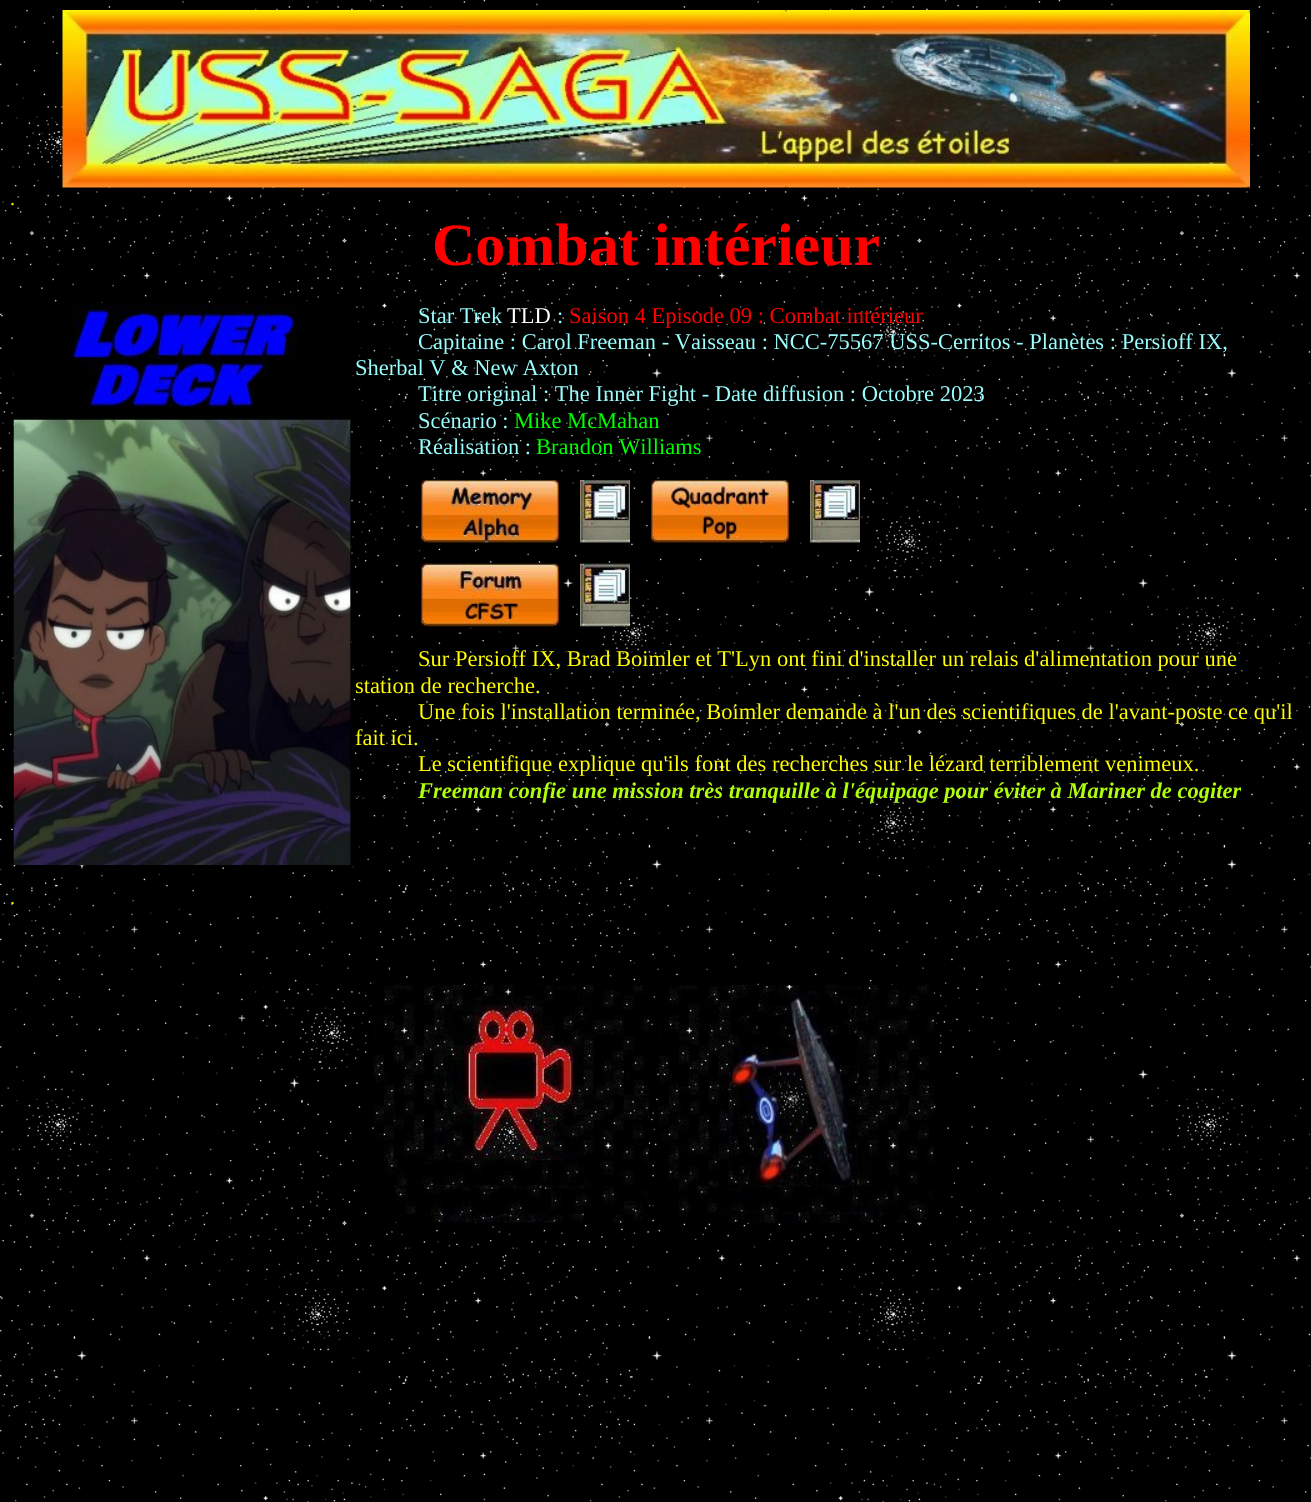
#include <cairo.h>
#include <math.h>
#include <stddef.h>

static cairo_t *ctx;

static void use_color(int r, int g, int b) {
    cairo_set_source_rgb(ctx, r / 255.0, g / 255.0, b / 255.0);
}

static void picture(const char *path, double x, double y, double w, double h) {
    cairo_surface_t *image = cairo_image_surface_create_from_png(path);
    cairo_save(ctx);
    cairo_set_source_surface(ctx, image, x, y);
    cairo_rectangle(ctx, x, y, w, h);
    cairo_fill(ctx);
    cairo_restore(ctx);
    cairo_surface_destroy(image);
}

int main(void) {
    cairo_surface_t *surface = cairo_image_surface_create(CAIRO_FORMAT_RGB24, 1311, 1502);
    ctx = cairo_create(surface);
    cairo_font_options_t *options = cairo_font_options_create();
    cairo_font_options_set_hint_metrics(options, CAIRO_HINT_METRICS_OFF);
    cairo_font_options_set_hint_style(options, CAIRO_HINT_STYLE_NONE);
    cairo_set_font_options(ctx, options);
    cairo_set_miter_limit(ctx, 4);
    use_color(0, 0, 0);
    cairo_paint(ctx);
    picture("img1.png", 0, 0, 1311, 1502);
    picture("img2.png", 62, 10, 1188, 178);
    cairo_select_font_face(ctx, "Liberation Serif", CAIRO_FONT_SLANT_NORMAL, CAIRO_FONT_WEIGHT_NORMAL);
    cairo_set_font_size(ctx, 20);
    use_color(255, 255, 0);
    cairo_move_to(ctx, 10, 205);
    cairo_show_text(ctx, ".");
    cairo_select_font_face(ctx, "Liberation Serif", CAIRO_FONT_SLANT_NORMAL, CAIRO_FONT_WEIGHT_BOLD);
    cairo_set_font_size(ctx, 60);
    use_color(255, 0, 0);
    cairo_move_to(ctx, 432, 265);
    cairo_show_text(ctx, "Combat intérieur");
    picture("img3.png", 13, 302, 339, 563);
    picture("img4.png", 356, 321, 51, 2);
    cairo_select_font_face(ctx, "Liberation Serif", CAIRO_FONT_SLANT_NORMAL, CAIRO_FONT_WEIGHT_NORMAL);
    cairo_set_font_size(ctx, 22.5);
    use_color(153, 255, 255);
    cairo_move_to(ctx, 418, 323);
    cairo_show_text(ctx, "Star Trek");
    use_color(255, 255, 255);
    cairo_move_to(ctx, 507, 323);
    cairo_show_text(ctx, "TLD");
    use_color(153, 255, 255);
    cairo_move_to(ctx, 557, 323);
    cairo_show_text(ctx, ":");
    use_color(255, 0, 0);
    cairo_move_to(ctx, 569, 323);
    cairo_show_text(ctx, "Saison 4 Episode 09 : Combat intérieur");
    picture("img5.png", 360, 347, 34, 2);
    use_color(153, 255, 255);
    cairo_move_to(ctx, 418, 349);
    cairo_show_text(ctx, "Capitaine : Carol Freeman - Vaisseau : NCC-75567 USS-Cerritos - Planètes : Persioff IX,");
    cairo_move_to(ctx, 355, 375);
    cairo_show_text(ctx, "Sherbal V & New Axton");
    picture("img6.png", 356, 400, 50, 2);
    cairo_move_to(ctx, 418, 401);
    cairo_show_text(ctx, "Titre original : The Inner Fight - Date diffusion : Octobre 2023");
    picture("img7.png", 356, 426, 58, 2);
    cairo_move_to(ctx, 418, 428);
    cairo_show_text(ctx, "Scénario :");
    use_color(0, 255, 0);
    cairo_move_to(ctx, 514, 428);
    cairo_show_text(ctx, "Mike McMahan");
    use_color(0, 0, 0);
    cairo_rectangle(ctx, 606, 429, 6, 1);
    cairo_fill(ctx);
    picture("img5.png", 360, 452, 34, 2);
    use_color(153, 255, 255);
    cairo_move_to(ctx, 418, 454);
    cairo_show_text(ctx, "Réalisation :");
    use_color(0, 255, 0);
    cairo_move_to(ctx, 536, 454);
    cairo_show_text(ctx, "Brandon Williams");
    use_color(0, 0, 0);
    cairo_rectangle(ctx, 572, 455, 96, 1);
    cairo_fill(ctx);
    picture("img8.png", 376, 511, 15, 2);
    picture("img9.png", 421, 480, 138, 63);
    picture("img10.png", 580, 480, 50, 63);
    picture("img11.png", 651, 480, 138, 63);
    picture("img12.png", 810, 480, 50, 63);
    picture("img13.png", 421, 563, 138, 64);
    picture("img14.png", 580, 563, 50, 64);
    picture("img15.png", 356, 665, 48, 2);
    use_color(255, 255, 0);
    cairo_move_to(ctx, 418, 666);
    cairo_show_text(ctx, "Sur Persioff IX, Brad Boimler et T'Lyn ont fini d'installer un relais d'alimentation pour une");
    cairo_move_to(ctx, 355, 693);
    cairo_show_text(ctx, "station de recherche.");
    picture("img16.png", 360, 717, 37, 2);
    cairo_move_to(ctx, 418, 719);
    cairo_show_text(ctx, "Une fois l'installation terminée, Boimler demande à l'un des scientifiques de l'avant-poste ce qu'il");
    cairo_move_to(ctx, 355, 745);
    cairo_show_text(ctx, "fait ici.");
    picture("img17.png", 356, 770, 55, 2);
    cairo_move_to(ctx, 418, 771);
    cairo_show_text(ctx, "Le scientifique explique qu'ils font des recherches sur le lézard terriblement venimeux.");
    picture("img18.png", 356, 796, 37, 2);
    cairo_select_font_face(ctx, "Liberation Serif", CAIRO_FONT_SLANT_ITALIC, CAIRO_FONT_WEIGHT_BOLD);
    use_color(175, 255, 10);
    cairo_move_to(ctx, 418, 798);
    cairo_show_text(ctx, "Freeman confie une mission très tranquille à l'équipage pour éviter à Mariner de cogiter");
    cairo_select_font_face(ctx, "Liberation Serif", CAIRO_FONT_SLANT_NORMAL, CAIRO_FONT_WEIGHT_NORMAL);
    cairo_set_font_size(ctx, 20);
    use_color(255, 255, 0);
    cairo_move_to(ctx, 10, 904);
    cairo_show_text(ctx, ".");
    picture("img19.png", 373, 985, 276, 238);
    picture("img20.png", 658, 985, 276, 238);
    cairo_surface_write_to_png(surface, "result.png");
    cairo_font_options_destroy(options);
    cairo_destroy(ctx);
    cairo_surface_destroy(surface);
    return 0;
}
